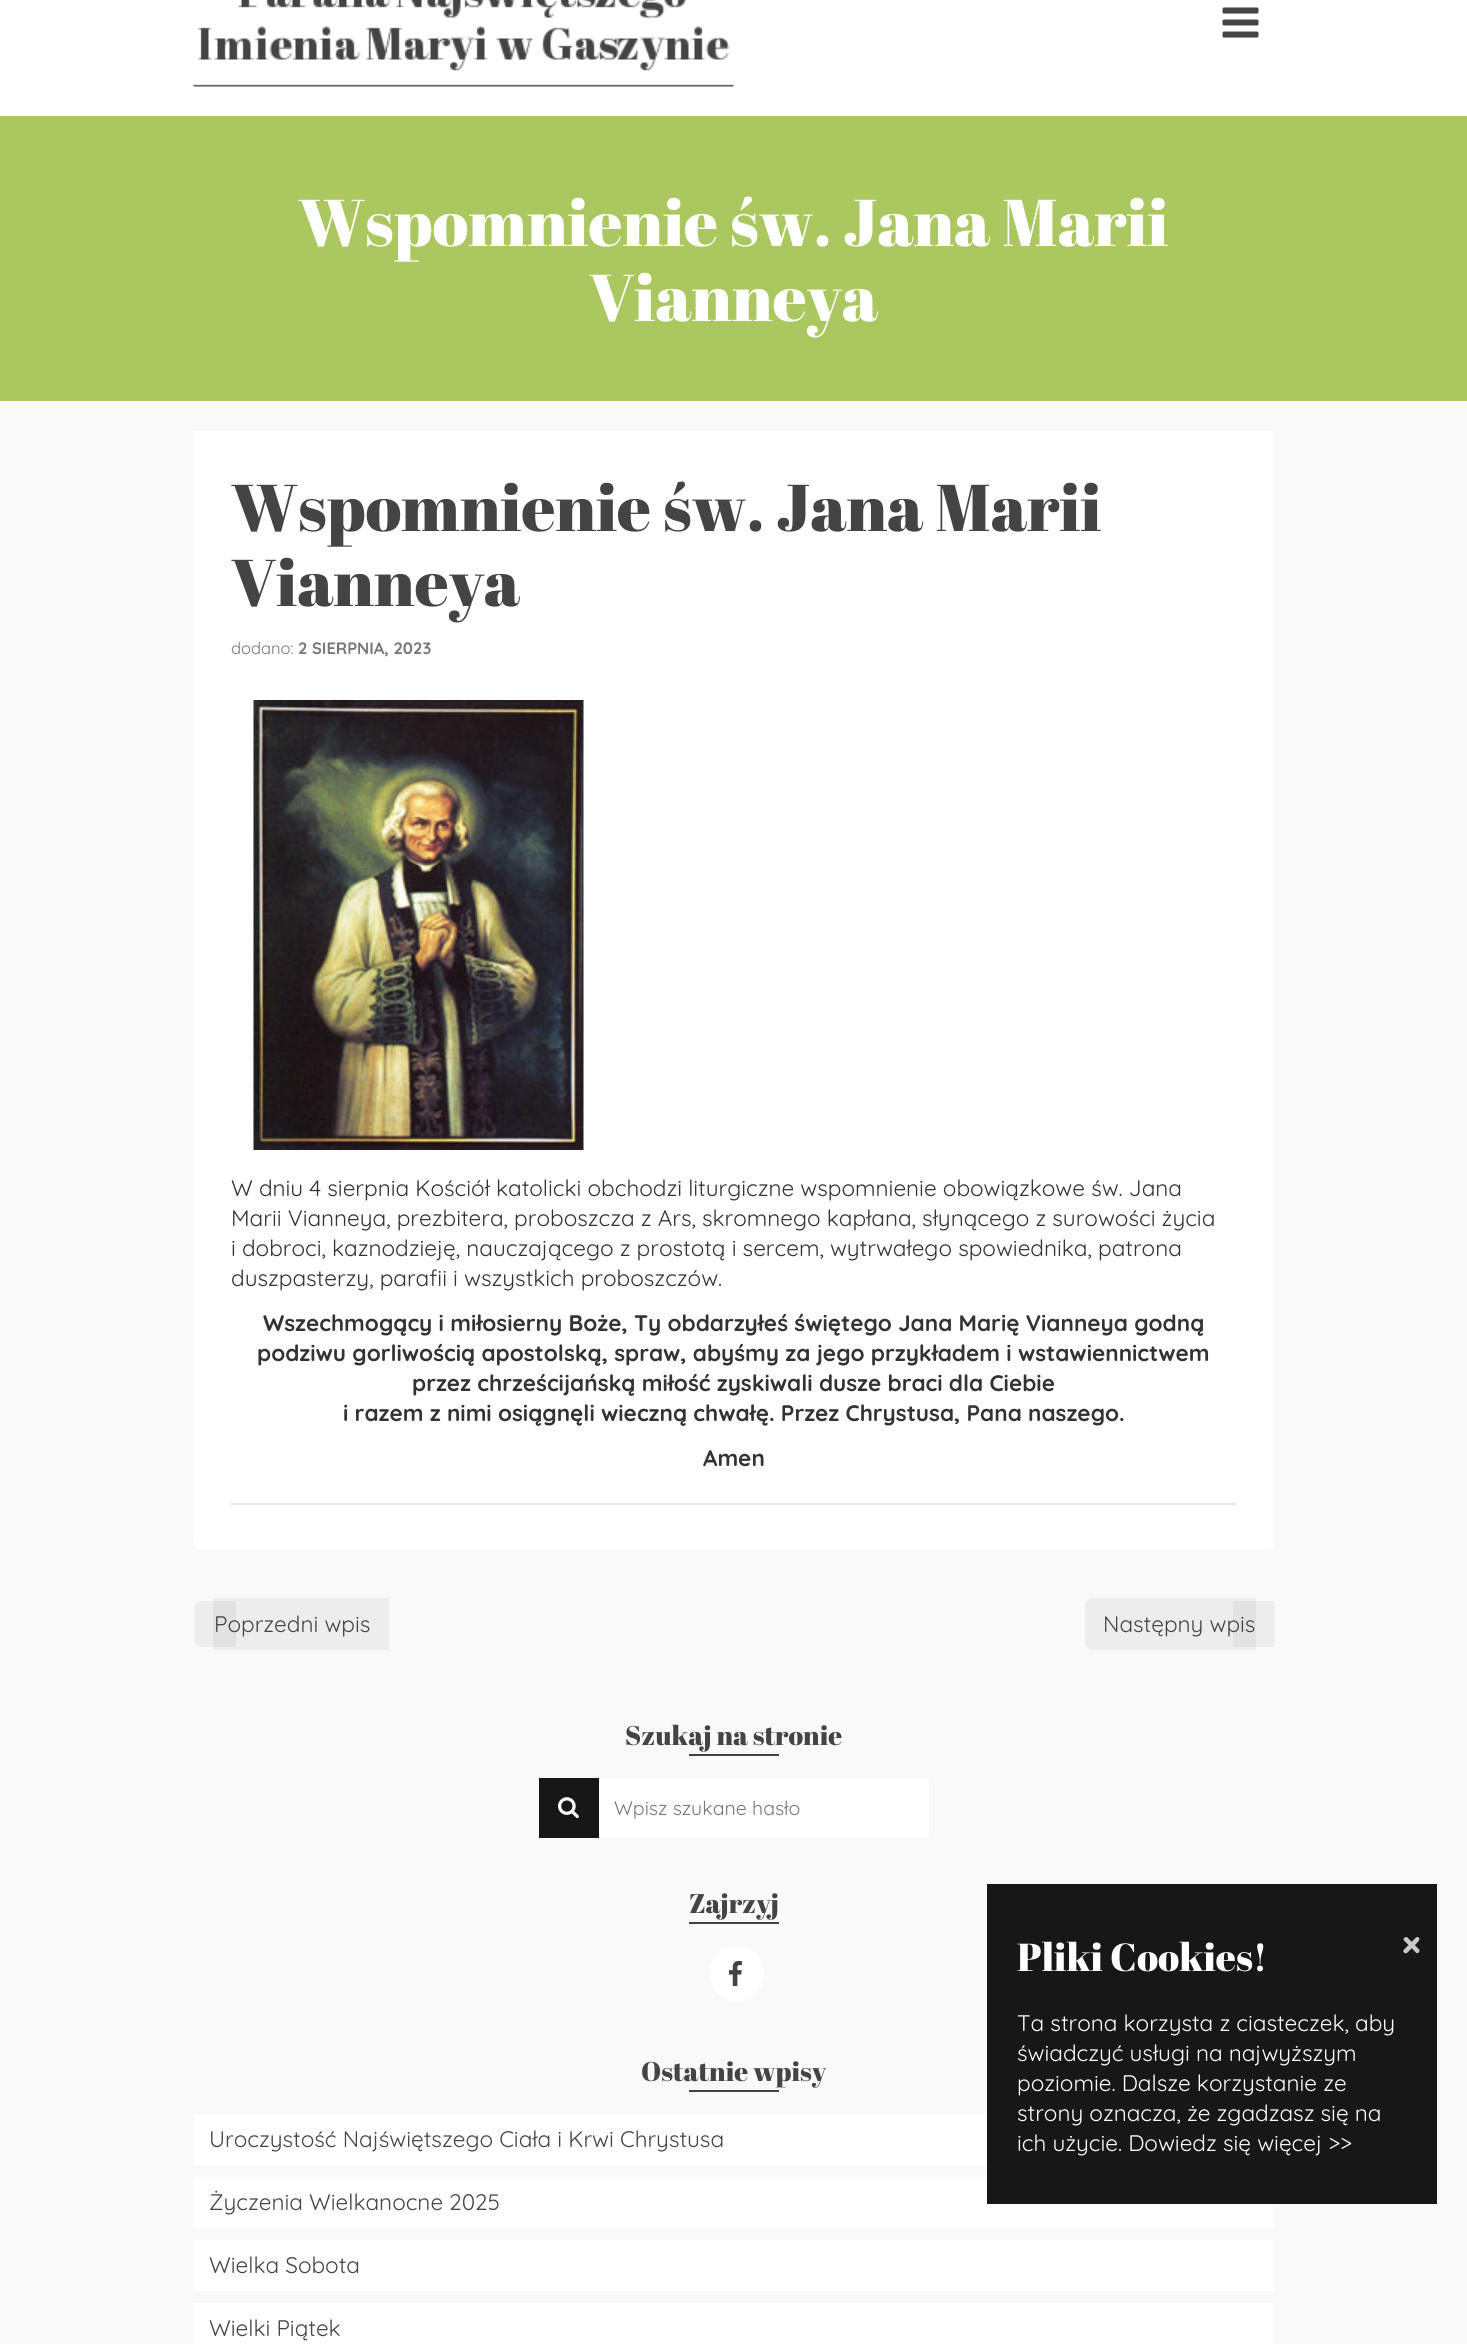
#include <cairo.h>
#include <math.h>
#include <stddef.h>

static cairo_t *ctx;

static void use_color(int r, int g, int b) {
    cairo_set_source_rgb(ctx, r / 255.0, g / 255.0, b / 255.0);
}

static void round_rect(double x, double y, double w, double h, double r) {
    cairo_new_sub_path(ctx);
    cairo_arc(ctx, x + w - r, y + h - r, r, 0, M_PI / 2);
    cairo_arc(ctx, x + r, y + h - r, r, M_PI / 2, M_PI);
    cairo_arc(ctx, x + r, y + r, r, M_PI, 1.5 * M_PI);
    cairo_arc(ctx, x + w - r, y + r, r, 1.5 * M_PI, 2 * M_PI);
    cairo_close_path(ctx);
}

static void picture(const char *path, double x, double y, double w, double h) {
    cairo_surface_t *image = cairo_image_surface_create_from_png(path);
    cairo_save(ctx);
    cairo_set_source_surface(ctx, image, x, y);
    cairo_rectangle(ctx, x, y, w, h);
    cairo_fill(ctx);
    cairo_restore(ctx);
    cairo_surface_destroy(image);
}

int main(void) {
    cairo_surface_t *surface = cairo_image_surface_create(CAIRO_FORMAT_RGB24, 1467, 2344);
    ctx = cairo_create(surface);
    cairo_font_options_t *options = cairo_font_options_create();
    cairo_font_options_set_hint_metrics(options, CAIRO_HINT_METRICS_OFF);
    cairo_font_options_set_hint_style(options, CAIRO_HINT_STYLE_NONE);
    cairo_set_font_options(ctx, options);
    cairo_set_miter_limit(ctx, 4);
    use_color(255, 255, 255);
    cairo_paint(ctx);
    picture("img1.png", 193, 0, 541, 87);
    picture("img2.png", 1222, 7, 37, 31);
    use_color(249, 249, 249);
    cairo_rectangle(ctx, 0, 401, 1467, 1943);
    cairo_fill(ctx);
    use_color(171, 199, 96);
    cairo_rectangle(ctx, 0, 116, 1467, 285);
    cairo_fill(ctx);
    cairo_select_font_face(ctx, "Abril Fatface", CAIRO_FONT_SLANT_NORMAL, CAIRO_FONT_WEIGHT_NORMAL);
    cairo_set_font_size(ctx, 66);
    use_color(255, 255, 255);
    cairo_move_to(ctx, 298, 246);
    cairo_show_text(ctx, "Wspomnienie św. Jana Marii");
    cairo_move_to(ctx, 589, 321);
    cairo_show_text(ctx, "Vianneya");
    cairo_new_path(ctx);
    cairo_move_to(ctx, 194, 431);
    cairo_line_to(ctx, 1274, 431);
    cairo_line_to(ctx, 1274, 1542);
    cairo_curve_to(ctx, 1274, 1546.5, 1270.5, 1550, 1266, 1550);
    cairo_line_to(ctx, 202, 1550);
    cairo_curve_to(ctx, 197.5, 1550, 194, 1546.5, 194, 1542);
    cairo_close_path(ctx);
    cairo_fill(ctx);
    use_color(68, 68, 68);
    cairo_move_to(ctx, 231, 531);
    cairo_show_text(ctx, "Wspomnienie św. Jana Marii");
    cairo_move_to(ctx, 231, 606);
    cairo_show_text(ctx, "Vianneya");
    cairo_select_font_face(ctx, "Quicksand", CAIRO_FONT_SLANT_NORMAL, CAIRO_FONT_WEIGHT_NORMAL);
    cairo_set_font_size(ctx, 16.5);
    use_color(119, 119, 119);
    cairo_move_to(ctx, 231, 654);
    cairo_show_text(ctx, "dodano:");
    cairo_select_font_face(ctx, "Quicksand", CAIRO_FONT_SLANT_NORMAL, CAIRO_FONT_WEIGHT_BOLD);
    cairo_move_to(ctx, 298, 654);
    cairo_show_text(ctx, "2 SIERPNIA, 2023");
    picture("img3.png", 253, 700, 331, 450);
    cairo_select_font_face(ctx, "Quicksand", CAIRO_FONT_SLANT_NORMAL, CAIRO_FONT_WEIGHT_NORMAL);
    cairo_set_font_size(ctx, 22.5);
    use_color(51, 51, 51);
    cairo_move_to(ctx, 231, 1196);
    cairo_show_text(ctx, "W dniu 4 sierpnia Kościół katolicki obchodzi liturgiczne wspomnienie obowiązkowe św. Jana");
    cairo_move_to(ctx, 231, 1226);
    cairo_show_text(ctx, "Marii Vianneya, prezbitera, proboszcza z Ars, skromnego kapłana, słynącego z surowości życia");
    cairo_move_to(ctx, 231, 1256);
    cairo_show_text(ctx, "i dobroci, kaznodzieję, nauczającego z prostotą i sercem, wytrwałego spowiednika, patrona");
    cairo_move_to(ctx, 231, 1286);
    cairo_show_text(ctx, "duszpasterzy, parafii i wszystkich proboszczów.");
    cairo_select_font_face(ctx, "Quicksand", CAIRO_FONT_SLANT_NORMAL, CAIRO_FONT_WEIGHT_BOLD);
    cairo_move_to(ctx, 263, 1331);
    cairo_show_text(ctx, "Wszechmogący i miłosierny Boże, Ty obdarzyłeś świętego Jana Marię Vianneya godną");
    cairo_move_to(ctx, 257, 1361);
    cairo_show_text(ctx, "podziwu gorliwością apostolską, spraw, abyśmy za jego przykładem i wstawiennictwem");
    cairo_move_to(ctx, 412, 1391);
    cairo_show_text(ctx, "przez chrześcijańską miłość zyskiwali dusze braci dla Ciebie");
    cairo_move_to(ctx, 343, 1421);
    cairo_show_text(ctx, "i razem z nimi osiągnęli wieczną chwałę. Przez Chrystusa, Pana naszego.");
    cairo_move_to(ctx, 703, 1466);
    cairo_show_text(ctx, "Amen");
    use_color(230, 230, 230);
    cairo_rectangle(ctx, 231, 1503, 1005, 2);
    cairo_fill(ctx);
    use_color(237, 237, 237);
    cairo_new_path(ctx);
    cairo_move_to(ctx, 202, 1601);
    cairo_line_to(ctx, 236, 1601);
    cairo_line_to(ctx, 236, 1647);
    cairo_line_to(ctx, 202, 1647);
    cairo_curve_to(ctx, 197.5, 1647, 194, 1643.5, 194, 1639);
    cairo_line_to(ctx, 194, 1609);
    cairo_curve_to(ctx, 194, 1604.5, 197.5, 1601, 202, 1601);
    cairo_close_path(ctx);
    cairo_fill(ctx);
    cairo_set_source_rgba(ctx, 0, 0, 0, 0.05);
    cairo_rectangle(ctx, 213, 1598, 176, 52);
    cairo_fill(ctx);
    cairo_select_font_face(ctx, "Quicksand", CAIRO_FONT_SLANT_NORMAL, CAIRO_FONT_WEIGHT_NORMAL);
    use_color(68, 68, 68);
    cairo_move_to(ctx, 214, 1632);
    cairo_show_text(ctx, "Poprzedni wpis");
    use_color(237, 237, 237);
    cairo_new_path(ctx);
    cairo_move_to(ctx, 1093, 1598);
    cairo_line_to(ctx, 1256, 1598);
    cairo_line_to(ctx, 1256, 1650);
    cairo_line_to(ctx, 1093, 1650);
    cairo_curve_to(ctx, 1088.5, 1650, 1085, 1646.5, 1085, 1642);
    cairo_line_to(ctx, 1085, 1606);
    cairo_curve_to(ctx, 1085, 1601.5, 1088.5, 1598, 1093, 1598);
    cairo_close_path(ctx);
    cairo_fill(ctx);
    cairo_set_source_rgba(ctx, 0, 0, 0, 0.05);
    cairo_rectangle(ctx, 1233, 1601, 41, 46);
    cairo_fill(ctx);
    use_color(68, 68, 68);
    cairo_move_to(ctx, 1103, 1632);
    cairo_show_text(ctx, "Następny wpis");
    cairo_select_font_face(ctx, "Abril Fatface", CAIRO_FONT_SLANT_NORMAL, CAIRO_FONT_WEIGHT_NORMAL);
    cairo_set_font_size(ctx, 27);
    cairo_move_to(ctx, 625, 1745);
    cairo_show_text(ctx, "Szukaj na stronie");
    cairo_rectangle(ctx, 689, 1754, 90, 2);
    cairo_fill(ctx);
    use_color(23, 23, 23);
    cairo_rectangle(ctx, 539, 1778, 60, 60);
    cairo_fill(ctx);
    picture("img4.png", 558, 1797, 21, 22);
    use_color(255, 255, 255);
    cairo_rectangle(ctx, 599, 1778, 330, 60);
    cairo_fill(ctx);
    cairo_select_font_face(ctx, "Quicksand", CAIRO_FONT_SLANT_NORMAL, CAIRO_FONT_WEIGHT_NORMAL);
    cairo_set_font_size(ctx, 19.5);
    use_color(119, 119, 119);
    cairo_move_to(ctx, 614, 1815);
    cairo_show_text(ctx, "Wpisz szukane hasło");
    cairo_select_font_face(ctx, "Abril Fatface", CAIRO_FONT_SLANT_NORMAL, CAIRO_FONT_WEIGHT_NORMAL);
    cairo_set_font_size(ctx, 27);
    use_color(68, 68, 68);
    cairo_move_to(ctx, 689, 1913);
    cairo_show_text(ctx, "Zajrzyj");
    cairo_rectangle(ctx, 689, 1922, 90, 2);
    cairo_fill(ctx);
    use_color(255, 255, 255);
    round_rect(710, 1946, 54, 55, 27);
    cairo_fill(ctx);
    picture("img5.png", 728, 1960, 14, 26);
    use_color(68, 68, 68);
    cairo_move_to(ctx, 641, 2081);
    cairo_show_text(ctx, "Ostatnie wpisy");
    cairo_rectangle(ctx, 689, 2090, 90, 2);
    cairo_fill(ctx);
    use_color(255, 255, 255);
    cairo_rectangle(ctx, 194, 2114, 793, 51);
    cairo_fill(ctx);
    cairo_select_font_face(ctx, "Quicksand", CAIRO_FONT_SLANT_NORMAL, CAIRO_FONT_WEIGHT_NORMAL);
    cairo_set_font_size(ctx, 22.5);
    use_color(68, 68, 68);
    cairo_move_to(ctx, 209, 2147);
    cairo_show_text(ctx, "Uroczystość Najświętszego Ciała i Krwi Chrystusa");
    use_color(255, 255, 255);
    cairo_rectangle(ctx, 194, 2177, 1080, 51);
    cairo_fill(ctx);
    use_color(68, 68, 68);
    cairo_move_to(ctx, 209, 2210);
    cairo_show_text(ctx, "Życzenia Wielkanocne 2025");
    use_color(255, 255, 255);
    cairo_rectangle(ctx, 194, 2240, 1080, 51);
    cairo_fill(ctx);
    use_color(68, 68, 68);
    cairo_move_to(ctx, 209, 2273);
    cairo_show_text(ctx, "Wielka Sobota");
    use_color(255, 255, 255);
    cairo_rectangle(ctx, 194, 2303, 1080, 41);
    cairo_fill(ctx);
    use_color(68, 68, 68);
    cairo_move_to(ctx, 209, 2336);
    cairo_show_text(ctx, "Wielki Piątek");
    use_color(23, 23, 23);
    cairo_rectangle(ctx, 987, 1884, 450, 320);
    cairo_fill(ctx);
    cairo_select_font_face(ctx, "Abril Fatface", CAIRO_FONT_SLANT_NORMAL, CAIRO_FONT_WEIGHT_NORMAL);
    cairo_set_font_size(ctx, 39);
    use_color(255, 255, 255);
    cairo_move_to(ctx, 1017, 1971);
    cairo_show_text(ctx, "Pliki Cookies!");
    use_color(201, 201, 201);
    cairo_new_path(ctx);
    cairo_move_to(ctx, 1407.5, 1937.5);
    cairo_line_to(ctx, 1419.5, 1950);
    cairo_curve_to(ctx, 1419.5, 1951, 1419.5, 1951.5, 1419, 1952);
    cairo_curve_to(ctx, 1417.5, 1955, 1415, 1952, 1414, 1950.5);
    cairo_line_to(ctx, 1404, 1940.5);
    cairo_curve_to(ctx, 1402.5, 1938.5, 1405.5, 1936, 1407.5, 1937.5);
    cairo_close_path(ctx);
    cairo_fill(ctx);
    cairo_new_path(ctx);
    cairo_move_to(ctx, 1404, 1949.5);
    cairo_line_to(ctx, 1416.5, 1937);
    cairo_curve_to(ctx, 1417, 1937, 1418, 1937, 1418.5, 1937.5);
    cairo_curve_to(ctx, 1421, 1939, 1418, 1941.5, 1417, 1943);
    cairo_line_to(ctx, 1407, 1953);
    cairo_curve_to(ctx, 1404.5, 1954.5, 1402, 1951, 1404, 1949.5);
    cairo_close_path(ctx);
    cairo_fill(ctx);
    cairo_select_font_face(ctx, "Quicksand", CAIRO_FONT_SLANT_NORMAL, CAIRO_FONT_WEIGHT_NORMAL);
    cairo_set_font_size(ctx, 22.5);
    use_color(255, 255, 255);
    cairo_move_to(ctx, 1017, 2031);
    cairo_show_text(ctx, "Ta strona korzysta z ciasteczek, aby");
    cairo_move_to(ctx, 1017, 2061);
    cairo_show_text(ctx, "świadczyć usługi na najwyższym");
    cairo_move_to(ctx, 1017, 2091);
    cairo_show_text(ctx, "poziomie. Dalsze korzystanie ze");
    cairo_move_to(ctx, 1017, 2121);
    cairo_show_text(ctx, "strony oznacza, że zgadzasz się na");
    cairo_move_to(ctx, 1017, 2151);
    cairo_show_text(ctx, "ich użycie. Dowiedz się więcej >>");
    cairo_surface_write_to_png(surface, "result.png");
    cairo_font_options_destroy(options);
    cairo_destroy(ctx);
    cairo_surface_destroy(surface);
    return 0;
}
